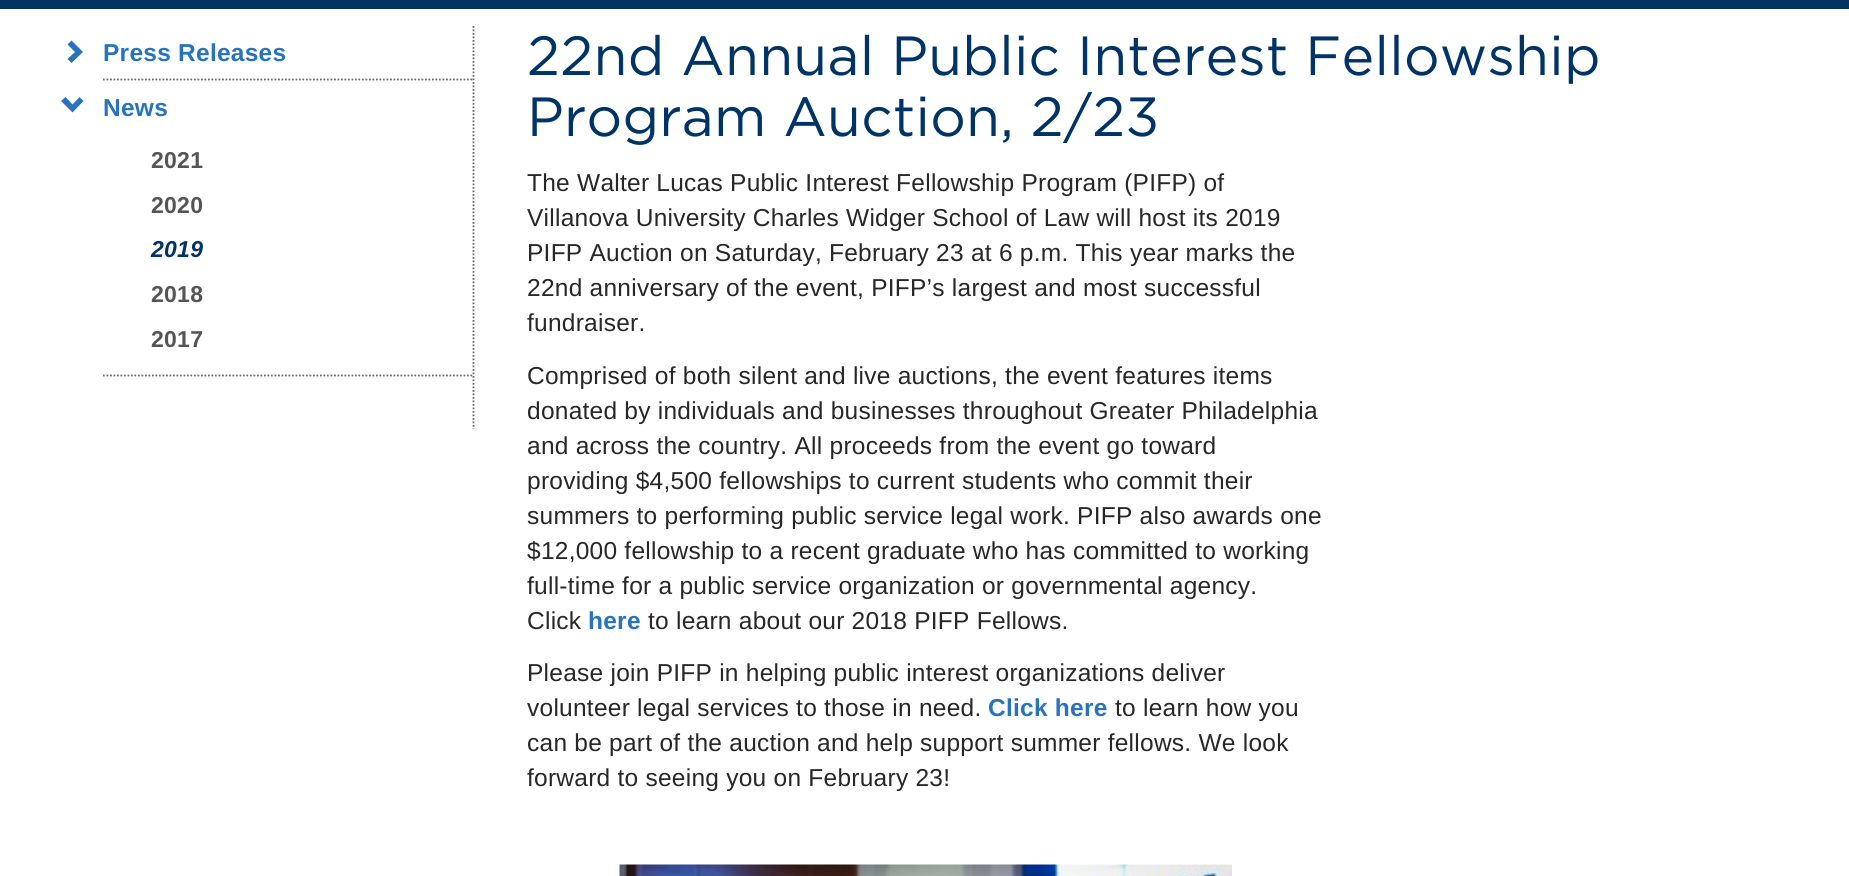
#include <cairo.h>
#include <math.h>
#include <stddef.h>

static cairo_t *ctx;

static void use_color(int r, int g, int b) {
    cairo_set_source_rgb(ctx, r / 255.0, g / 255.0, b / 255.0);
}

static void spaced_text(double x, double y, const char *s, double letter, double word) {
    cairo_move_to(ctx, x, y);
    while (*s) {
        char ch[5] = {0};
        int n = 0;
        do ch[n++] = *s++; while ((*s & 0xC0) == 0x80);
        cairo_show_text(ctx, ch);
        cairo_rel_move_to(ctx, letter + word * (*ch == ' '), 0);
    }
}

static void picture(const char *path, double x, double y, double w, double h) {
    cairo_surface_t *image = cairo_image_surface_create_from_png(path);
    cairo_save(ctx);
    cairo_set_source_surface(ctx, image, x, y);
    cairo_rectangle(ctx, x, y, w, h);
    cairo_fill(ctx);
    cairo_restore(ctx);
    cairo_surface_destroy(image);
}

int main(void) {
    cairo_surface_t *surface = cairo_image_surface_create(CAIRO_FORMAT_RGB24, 1849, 876);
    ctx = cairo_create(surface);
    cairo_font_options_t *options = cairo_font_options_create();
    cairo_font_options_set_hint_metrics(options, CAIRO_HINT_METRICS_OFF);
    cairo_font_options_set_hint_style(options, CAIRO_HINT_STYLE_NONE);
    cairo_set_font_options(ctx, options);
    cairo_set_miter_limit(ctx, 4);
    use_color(255, 255, 255);
    cairo_paint(ctx);
    use_color(0, 51, 102);
    cairo_rectangle(ctx, 0, 0, 1849, 9);
    cairo_fill(ctx);
    cairo_new_path(ctx);
    cairo_move_to(ctx, 473.5, 26);
    cairo_line_to(ctx, 473.5, 429);
    use_color(102, 102, 102);
    cairo_set_line_width(ctx, 1.8);
    cairo_set_dash(ctx, (double[]){1.75, 1.75}, 2, 0);
    cairo_stroke(ctx);
    cairo_new_path(ctx);
    cairo_move_to(ctx, 103, 79.5);
    cairo_line_to(ctx, 472.5, 79.5);
    cairo_stroke(ctx);
    use_color(39, 115, 190);
    cairo_new_path(ctx);
    cairo_move_to(ctx, 83, 52);
    cairo_line_to(ctx, 71.5, 63);
    cairo_line_to(ctx, 67.5, 59);
    cairo_line_to(ctx, 75, 52);
    cairo_line_to(ctx, 67.5, 44.5);
    cairo_line_to(ctx, 71.5, 40.5);
    cairo_close_path(ctx);
    cairo_fill(ctx);
    cairo_select_font_face(ctx, "Liberation Sans", CAIRO_FONT_SLANT_NORMAL, CAIRO_FONT_WEIGHT_BOLD);
    cairo_set_font_size(ctx, 24.5);
    spaced_text(103, 61, "Press Releases", 0.25, 0);
    cairo_new_path(ctx);
    cairo_move_to(ctx, 103, 375.5);
    cairo_line_to(ctx, 472.5, 375.5);
    use_color(102, 102, 102);
    cairo_stroke(ctx);
    use_color(39, 115, 190);
    cairo_new_path(ctx);
    cairo_move_to(ctx, 83.5, 101);
    cairo_line_to(ctx, 72.5, 112.5);
    cairo_line_to(ctx, 61, 101);
    cairo_line_to(ctx, 65.5, 97);
    cairo_line_to(ctx, 72.5, 104.5);
    cairo_line_to(ctx, 79.5, 97);
    cairo_close_path(ctx);
    cairo_fill(ctx);
    spaced_text(103, 116, "News", 0.25, 0);
    cairo_set_font_size(ctx, 23);
    use_color(85, 85, 85);
    spaced_text(151, 168, "2021", 0.25, 0);
    spaced_text(151, 213, "2020", 0.25, 0);
    cairo_select_font_face(ctx, "Liberation Sans", CAIRO_FONT_SLANT_ITALIC, CAIRO_FONT_WEIGHT_BOLD);
    use_color(0, 51, 102);
    spaced_text(151, 257, "2019", 0.25, 0);
    cairo_select_font_face(ctx, "Liberation Sans", CAIRO_FONT_SLANT_NORMAL, CAIRO_FONT_WEIGHT_BOLD);
    use_color(85, 85, 85);
    spaced_text(151, 302, "2018", 0.25, 0);
    spaced_text(151, 347, "2017", 0.25, 0);
    cairo_select_font_face(ctx, "Gotham", CAIRO_FONT_SLANT_NORMAL, CAIRO_FONT_WEIGHT_NORMAL);
    cairo_set_font_size(ctx, 55.1);
    use_color(0, 51, 102);
    spaced_text(527, 75, "22nd Annual Public Interest Fellowship", 0.25, 0);
    spaced_text(527, 136, "Program Auction, 2/23", 0.25, 0);
    cairo_select_font_face(ctx, "Liberation Sans", CAIRO_FONT_SLANT_NORMAL, CAIRO_FONT_WEIGHT_NORMAL);
    cairo_set_font_size(ctx, 24.5);
    use_color(39, 39, 39);
    spaced_text(527, 191, "The Walter Lucas Public Interest Fellowship Program (PIFP) of", 0.25, 0);
    spaced_text(527, 226, "Villanova University Charles Widger School of Law will host its 2019", 0.25, 0);
    spaced_text(527, 261, "PIFP Auction on Saturday, February 23 at 6 p.m. This year marks the", 0.25, 0);
    spaced_text(527, 296, "22nd anniversary of the event, PIFP’s largest and most successful", 0.25, 0);
    spaced_text(527, 331, "fundraiser.", 0.25, 0);
    spaced_text(527, 384, "Comprised of both silent and live auctions, the event features items", 0.25, 0);
    spaced_text(527, 419, "donated by individuals and businesses throughout Greater Philadelphia", 0.25, 0);
    spaced_text(527, 454, "and across the country. All proceeds from the event go toward", 0.25, 0);
    spaced_text(527, 489, "providing $4,500 fellowships to current students who commit their", 0.25, 0);
    spaced_text(527, 524, "summers to performing public service legal work. PIFP also awards one", 0.25, 0);
    spaced_text(527, 559, "$12,000 fellowship to a recent graduate who has committed to working", 0.25, 0);
    spaced_text(527, 594, "full-time for a public service organization or governmental agency.", 0.25, 0);
    spaced_text(527, 629, "Click", 0.25, 0);
    cairo_select_font_face(ctx, "Liberation Sans", CAIRO_FONT_SLANT_NORMAL, CAIRO_FONT_WEIGHT_BOLD);
    use_color(39, 115, 190);
    spaced_text(588, 629, "here", 0.25, 0);
    cairo_select_font_face(ctx, "Liberation Sans", CAIRO_FONT_SLANT_NORMAL, CAIRO_FONT_WEIGHT_NORMAL);
    use_color(39, 39, 39);
    spaced_text(648, 629, "to learn about our 2018 PIFP Fellows.", 0.25, 0);
    spaced_text(527, 681, "Please join PIFP in helping public interest organizations deliver", 0.25, 0);
    spaced_text(527, 716, "volunteer legal services to those in need.", 0.25, 0);
    cairo_select_font_face(ctx, "Liberation Sans", CAIRO_FONT_SLANT_NORMAL, CAIRO_FONT_WEIGHT_BOLD);
    use_color(39, 115, 190);
    spaced_text(988, 716, "Click here", 0.25, 0);
    cairo_select_font_face(ctx, "Liberation Sans", CAIRO_FONT_SLANT_NORMAL, CAIRO_FONT_WEIGHT_NORMAL);
    use_color(39, 39, 39);
    spaced_text(1115, 716, "to learn how you", 0.25, 0);
    spaced_text(527, 751, "can be part of the auction and help support summer fellows. We look", 0.25, 0);
    spaced_text(527, 786, "forward to seeing you on February 23!", 0.25, 0);
    picture("img1.png", 619, 864, 613, 12);
    cairo_surface_write_to_png(surface, "result.png");
    cairo_font_options_destroy(options);
    cairo_destroy(ctx);
    cairo_surface_destroy(surface);
    return 0;
}
